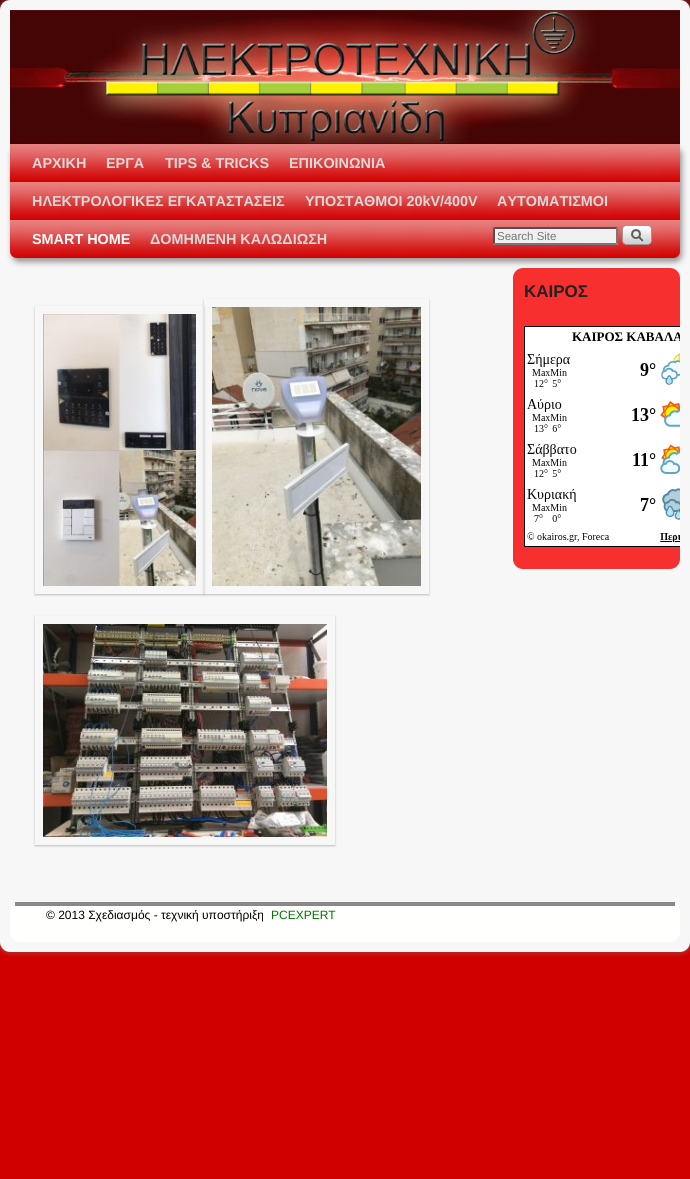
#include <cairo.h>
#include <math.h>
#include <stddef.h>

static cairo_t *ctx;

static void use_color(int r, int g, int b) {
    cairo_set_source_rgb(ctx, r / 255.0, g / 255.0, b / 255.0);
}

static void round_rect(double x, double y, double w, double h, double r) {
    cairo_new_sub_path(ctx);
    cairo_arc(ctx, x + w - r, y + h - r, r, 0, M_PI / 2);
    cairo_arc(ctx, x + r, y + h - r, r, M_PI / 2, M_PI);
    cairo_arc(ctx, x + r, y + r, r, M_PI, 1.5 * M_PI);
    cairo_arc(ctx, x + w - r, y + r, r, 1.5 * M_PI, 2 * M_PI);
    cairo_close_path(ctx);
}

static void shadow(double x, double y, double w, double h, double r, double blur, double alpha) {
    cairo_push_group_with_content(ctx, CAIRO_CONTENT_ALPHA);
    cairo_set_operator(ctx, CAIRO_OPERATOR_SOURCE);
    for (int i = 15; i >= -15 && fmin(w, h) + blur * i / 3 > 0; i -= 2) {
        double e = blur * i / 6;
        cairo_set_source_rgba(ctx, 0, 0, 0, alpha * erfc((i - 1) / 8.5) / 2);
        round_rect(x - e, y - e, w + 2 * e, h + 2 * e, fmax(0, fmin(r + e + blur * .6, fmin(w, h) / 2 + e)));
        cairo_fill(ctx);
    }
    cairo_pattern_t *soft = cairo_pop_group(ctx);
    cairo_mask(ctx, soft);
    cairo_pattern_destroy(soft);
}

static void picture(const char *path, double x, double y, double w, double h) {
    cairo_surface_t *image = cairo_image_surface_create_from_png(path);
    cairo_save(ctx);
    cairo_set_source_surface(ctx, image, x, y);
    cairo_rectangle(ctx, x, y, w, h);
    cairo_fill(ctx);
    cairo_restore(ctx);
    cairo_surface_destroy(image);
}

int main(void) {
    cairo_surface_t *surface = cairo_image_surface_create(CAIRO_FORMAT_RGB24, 690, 1179);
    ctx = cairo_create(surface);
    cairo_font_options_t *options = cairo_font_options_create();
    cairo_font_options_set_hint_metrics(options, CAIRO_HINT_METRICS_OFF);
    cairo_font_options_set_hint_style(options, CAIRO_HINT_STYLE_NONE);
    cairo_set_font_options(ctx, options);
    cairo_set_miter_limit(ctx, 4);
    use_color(209, 0, 0);
    cairo_paint(ctx);
    picture("img1.png", 0, 0, 690, 10);
    use_color(127, 127, 127);
    shadow(-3, -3, 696, 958, 13, 1.5, 0.25);
    use_color(247, 247, 247);
    round_rect(0, 0, 690, 952, 10);
    cairo_fill(ctx);
    picture("img2.png", 10, 10, 670, 134);
    use_color(247, 47, 47);
    round_rect(513, 268, 167, 301, 10);
    cairo_fill(ctx);
    use_color(0, 0, 0);
    shadow(12, 148, 670, 114, 7, 3, 0.4);
    use_color(209, 0, 0);
    cairo_new_path(ctx);
    cairo_move_to(ctx, 10, 144);
    cairo_line_to(ctx, 680, 144);
    cairo_line_to(ctx, 680, 251);
    cairo_curve_to(ctx, 680, 255, 677, 258, 673, 258);
    cairo_line_to(ctx, 17, 258);
    cairo_curve_to(ctx, 13, 258, 10, 255, 10, 251);
    cairo_close_path(ctx);
    cairo_fill(ctx);
    picture("img3.png", 10, 144, 670, 113);
    cairo_select_font_face(ctx, "Liberation Sans", CAIRO_FONT_SLANT_NORMAL, CAIRO_FONT_WEIGHT_BOLD);
    cairo_set_font_size(ctx, 14.4);
    use_color(217, 217, 217);
    cairo_move_to(ctx, 32, 168);
    cairo_show_text(ctx, "ΑΡΧΙΚΗ");
    cairo_move_to(ctx, 106, 168);
    cairo_show_text(ctx, "ΕΡΓΑ");
    cairo_move_to(ctx, 165, 168);
    cairo_show_text(ctx, "TIPS & TRICKS");
    cairo_move_to(ctx, 289, 168);
    cairo_show_text(ctx, "ΕΠΙΚΟΙΝΩΝΙΑ");
    cairo_move_to(ctx, 32, 206);
    cairo_show_text(ctx, "ΗΛΕΚΤΡΟΛΟΓΙΚΕΣ ΕΓΚΑΤΑΣΤΑΣΕΙΣ");
    cairo_move_to(ctx, 305, 206);
    cairo_show_text(ctx, "ΥΠΟΣΤΑΘΜΟΙ 20kV/400V");
    cairo_move_to(ctx, 497, 206);
    cairo_show_text(ctx, "ΑΥΤΟΜΑΤΙΣΜΟΙ");
    use_color(255, 255, 255);
    cairo_move_to(ctx, 32, 244);
    cairo_show_text(ctx, "SMART HOME");
    use_color(217, 217, 217);
    cairo_move_to(ctx, 150, 244);
    cairo_show_text(ctx, "ΔΟΜΗΜΕΝΗ ΚΑΛΩΔΙΩΣΗ");
    use_color(240, 240, 240);
    cairo_rectangle(ctx, 493, 227, 125, 18);
    cairo_fill(ctx);
    use_color(79, 79, 79);
    cairo_new_path(ctx);
    cairo_move_to(ctx, 493, 227);
    cairo_line_to(ctx, 618, 227);
    cairo_line_to(ctx, 616, 229);
    cairo_line_to(ctx, 495, 229);
    cairo_close_path(ctx);
    cairo_fill(ctx);
    use_color(118, 118, 118);
    cairo_new_path(ctx);
    cairo_move_to(ctx, 618, 227);
    cairo_line_to(ctx, 618, 245);
    cairo_line_to(ctx, 616, 243);
    cairo_line_to(ctx, 616, 229);
    cairo_close_path(ctx);
    cairo_fill(ctx);
    cairo_new_path(ctx);
    cairo_move_to(ctx, 618, 245);
    cairo_line_to(ctx, 493, 245);
    cairo_line_to(ctx, 495, 243);
    cairo_line_to(ctx, 616, 243);
    cairo_close_path(ctx);
    cairo_fill(ctx);
    use_color(79, 79, 79);
    cairo_new_path(ctx);
    cairo_move_to(ctx, 493, 245);
    cairo_line_to(ctx, 493, 227);
    cairo_line_to(ctx, 495, 229);
    cairo_line_to(ctx, 495, 243);
    cairo_close_path(ctx);
    cairo_fill(ctx);
    cairo_select_font_face(ctx, "Liberation Sans", CAIRO_FONT_SLANT_NORMAL, CAIRO_FONT_WEIGHT_NORMAL);
    cairo_set_font_size(ctx, 11.5);
    use_color(117, 117, 117);
    cairo_move_to(ctx, 497, 240);
    cairo_show_text(ctx, "Search Site");
    picture("img4.png", 622, 225, 30, 20);
    cairo_save(ctx);
    cairo_set_fill_rule(ctx, CAIRO_FILL_RULE_EVEN_ODD);
    cairo_new_path(ctx);
    cairo_move_to(ctx, 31, 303);
    cairo_line_to(ctx, 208, 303);
    cairo_line_to(ctx, 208, 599);
    cairo_line_to(ctx, 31, 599);
    cairo_close_path(ctx);
    cairo_move_to(ctx, 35, 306);
    cairo_line_to(ctx, 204, 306);
    cairo_line_to(ctx, 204, 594);
    cairo_line_to(ctx, 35, 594);
    cairo_close_path(ctx);
    cairo_clip(ctx);
    use_color(187, 187, 187);
    shadow(35, 307, 169, 288, 0, 1, 1);
    cairo_restore(ctx);
    cairo_save(ctx);
    cairo_set_fill_rule(ctx, CAIRO_FILL_RULE_EVEN_ODD);
    cairo_new_path(ctx);
    cairo_move_to(ctx, 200, 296);
    cairo_line_to(ctx, 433, 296);
    cairo_line_to(ctx, 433, 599);
    cairo_line_to(ctx, 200, 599);
    cairo_close_path(ctx);
    cairo_move_to(ctx, 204, 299);
    cairo_line_to(ctx, 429, 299);
    cairo_line_to(ctx, 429, 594);
    cairo_line_to(ctx, 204, 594);
    cairo_close_path(ctx);
    cairo_clip(ctx);
    use_color(187, 187, 187);
    shadow(204, 300, 225, 295, 0, 1, 1);
    cairo_restore(ctx);
    picture("img5.png", 43, 314, 153, 272);
    picture("img6.png", 212, 307, 209, 279);
    cairo_save(ctx);
    cairo_set_fill_rule(ctx, CAIRO_FILL_RULE_EVEN_ODD);
    cairo_new_path(ctx);
    cairo_move_to(ctx, 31, 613);
    cairo_line_to(ctx, 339, 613);
    cairo_line_to(ctx, 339, 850);
    cairo_line_to(ctx, 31, 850);
    cairo_close_path(ctx);
    cairo_move_to(ctx, 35, 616);
    cairo_line_to(ctx, 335, 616);
    cairo_line_to(ctx, 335, 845);
    cairo_line_to(ctx, 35, 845);
    cairo_close_path(ctx);
    cairo_clip(ctx);
    use_color(187, 187, 187);
    shadow(35, 617, 300, 229, 0, 1, 1);
    cairo_restore(ctx);
    picture("img7.png", 43, 624, 284, 213);
    cairo_select_font_face(ctx, "Liberation Sans", CAIRO_FONT_SLANT_NORMAL, CAIRO_FONT_WEIGHT_BOLD);
    cairo_set_font_size(ctx, 17);
    use_color(34, 34, 34);
    cairo_move_to(ctx, 524, 297);
    cairo_show_text(ctx, "ΚΑΙΡΟΣ");
    use_color(255, 255, 255);
    cairo_rectangle(ctx, 525, 327, 155, 219);
    cairo_fill(ctx);
    cairo_save(ctx);
    cairo_rectangle(ctx, 10, 258, 670, 644);
    cairo_clip(ctx);
    cairo_rectangle(ctx, 524.5, 326.5, 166, 220);
    use_color(0, 0, 0);
    cairo_set_line_width(ctx, 1);
    cairo_stroke(ctx);
    cairo_restore(ctx);
    cairo_save(ctx);
    cairo_rectangle(ctx, 525, 327, 155, 219);
    cairo_clip(ctx);
    cairo_select_font_face(ctx, "Liberation Serif", CAIRO_FONT_SLANT_NORMAL, CAIRO_FONT_WEIGHT_BOLD);
    cairo_set_font_size(ctx, 13);
    use_color(0, 0, 0);
    cairo_move_to(ctx, 572, 341);
    cairo_show_text(ctx, "ΚΑΙΡΟΣ ΚΑΒΑΛΑ");
    cairo_restore(ctx);
    picture("img8.png", 527, 353, 153, 189);
    use_color(255, 255, 254);
    round_rect(10, 902, 670, 40, 10);
    cairo_fill(ctx);
    use_color(136, 136, 136);
    cairo_rectangle(ctx, 15, 902, 660, 4);
    cairo_fill(ctx);
    cairo_select_font_face(ctx, "Liberation Sans", CAIRO_FONT_SLANT_NORMAL, CAIRO_FONT_WEIGHT_NORMAL);
    cairo_set_font_size(ctx, 12);
    use_color(0, 0, 0);
    cairo_move_to(ctx, 46, 919);
    cairo_show_text(ctx, "© 2013 Σχεδιασμός - τεχνική υποστήριξη");
    use_color(0, 119, 0);
    cairo_move_to(ctx, 271, 919);
    cairo_show_text(ctx, "PCEXPERT");
    cairo_surface_write_to_png(surface, "result.png");
    cairo_font_options_destroy(options);
    cairo_destroy(ctx);
    cairo_surface_destroy(surface);
    return 0;
}
